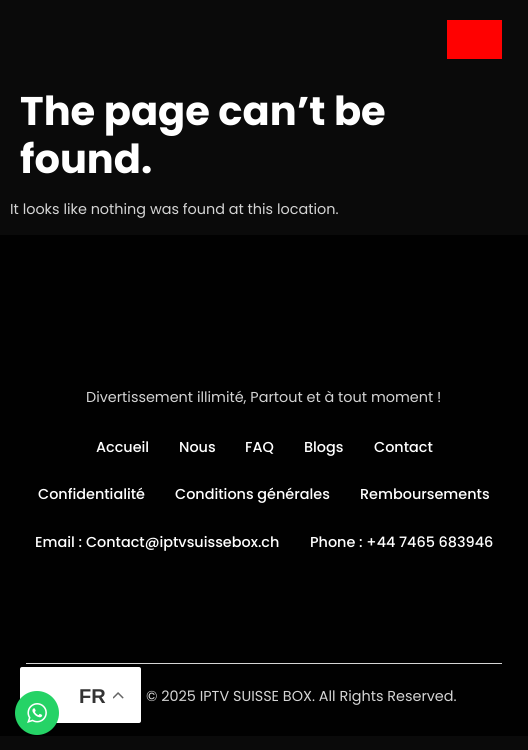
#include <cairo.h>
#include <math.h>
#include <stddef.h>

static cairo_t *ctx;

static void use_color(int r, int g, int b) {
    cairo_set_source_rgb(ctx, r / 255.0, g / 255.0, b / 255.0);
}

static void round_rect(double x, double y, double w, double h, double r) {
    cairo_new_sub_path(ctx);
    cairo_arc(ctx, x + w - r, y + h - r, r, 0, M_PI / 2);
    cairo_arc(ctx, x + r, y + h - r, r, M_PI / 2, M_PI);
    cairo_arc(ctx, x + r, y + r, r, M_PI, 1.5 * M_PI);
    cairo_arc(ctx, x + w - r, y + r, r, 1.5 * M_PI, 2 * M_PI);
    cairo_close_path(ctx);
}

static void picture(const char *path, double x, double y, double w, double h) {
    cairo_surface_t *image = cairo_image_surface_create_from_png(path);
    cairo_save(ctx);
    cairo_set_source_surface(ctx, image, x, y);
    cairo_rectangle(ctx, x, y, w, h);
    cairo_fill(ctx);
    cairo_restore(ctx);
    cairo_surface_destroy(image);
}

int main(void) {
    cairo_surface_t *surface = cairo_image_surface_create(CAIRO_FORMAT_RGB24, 528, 750);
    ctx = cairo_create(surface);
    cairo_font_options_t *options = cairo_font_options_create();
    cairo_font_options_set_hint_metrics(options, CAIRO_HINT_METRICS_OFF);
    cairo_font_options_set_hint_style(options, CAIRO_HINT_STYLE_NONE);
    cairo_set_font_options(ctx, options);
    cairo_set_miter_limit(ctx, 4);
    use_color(10, 10, 10);
    cairo_paint(ctx);
    use_color(255, 1, 1);
    cairo_rectangle(ctx, 447, 20, 55, 39);
    cairo_fill(ctx);
    cairo_select_font_face(ctx, "Poppins", CAIRO_FONT_SLANT_NORMAL, CAIRO_FONT_WEIGHT_BOLD);
    cairo_set_font_size(ctx, 40);
    use_color(255, 255, 255);
    cairo_move_to(ctx, 20, 125);
    cairo_show_text(ctx, "The page can’t be");
    cairo_move_to(ctx, 20, 173);
    cairo_show_text(ctx, "found.");
    cairo_select_font_face(ctx, "Poppins", CAIRO_FONT_SLANT_NORMAL, CAIRO_FONT_WEIGHT_NORMAL);
    cairo_set_font_size(ctx, 14.4);
    use_color(213, 213, 213);
    cairo_move_to(ctx, 10, 214);
    cairo_show_text(ctx, "It looks like nothing was found at this location.");
    use_color(1, 1, 1);
    cairo_rectangle(ctx, 0, 235, 528, 501);
    cairo_fill(ctx);
    use_color(213, 213, 213);
    cairo_move_to(ctx, 86, 402);
    cairo_show_text(ctx, "Divertissement illimité, Partout et à tout moment !");
    cairo_select_font_face(ctx, "Poppins Medium", CAIRO_FONT_SLANT_NORMAL, CAIRO_FONT_WEIGHT_NORMAL);
    use_color(255, 255, 255);
    cairo_move_to(ctx, 96, 452);
    cairo_show_text(ctx, "Accueil");
    cairo_move_to(ctx, 179, 452);
    cairo_show_text(ctx, "Nous");
    cairo_move_to(ctx, 245, 452);
    cairo_show_text(ctx, "FAQ");
    cairo_move_to(ctx, 304, 452);
    cairo_show_text(ctx, "Blogs");
    cairo_move_to(ctx, 374, 452);
    cairo_show_text(ctx, "Contact");
    cairo_move_to(ctx, 38, 499);
    cairo_show_text(ctx, "Confidentialité");
    cairo_move_to(ctx, 175, 499);
    cairo_show_text(ctx, "Conditions générales");
    cairo_move_to(ctx, 360, 499);
    cairo_show_text(ctx, "Remboursements");
    cairo_move_to(ctx, 35, 547);
    cairo_show_text(ctx, "Email : Contact@iptvsuissebox.ch");
    cairo_move_to(ctx, 310, 547);
    cairo_show_text(ctx, "Phone : +44 7465 683946");
    use_color(213, 213, 213);
    cairo_rectangle(ctx, 26, 663, 476, 1);
    cairo_fill(ctx);
    cairo_select_font_face(ctx, "Poppins", CAIRO_FONT_SLANT_NORMAL, CAIRO_FONT_WEIGHT_NORMAL);
    cairo_move_to(ctx, 146, 701);
    cairo_show_text(ctx, "© 2025 IPTV SUISSE BOX. All Rights Reserved.");
    use_color(255, 255, 255);
    round_rect(20, 667, 121, 56, 2);
    cairo_fill(ctx);
    use_color(37, 211, 102);
    cairo_arc(ctx, 37, 713, 22, 0, 2 * M_PI);
    cairo_fill(ctx);
    picture("img1.png", 27, 703, 20, 20);
    cairo_select_font_face(ctx, "Liberation Sans", CAIRO_FONT_SLANT_NORMAL, CAIRO_FONT_WEIGHT_BOLD);
    cairo_set_font_size(ctx, 20);
    use_color(51, 51, 51);
    cairo_move_to(ctx, 79, 703);
    cairo_show_text(ctx, "FR");
    picture("img2.png", 113, 692, 11, 7);
    cairo_surface_write_to_png(surface, "result.png");
    cairo_font_options_destroy(options);
    cairo_destroy(ctx);
    cairo_surface_destroy(surface);
    return 0;
}
